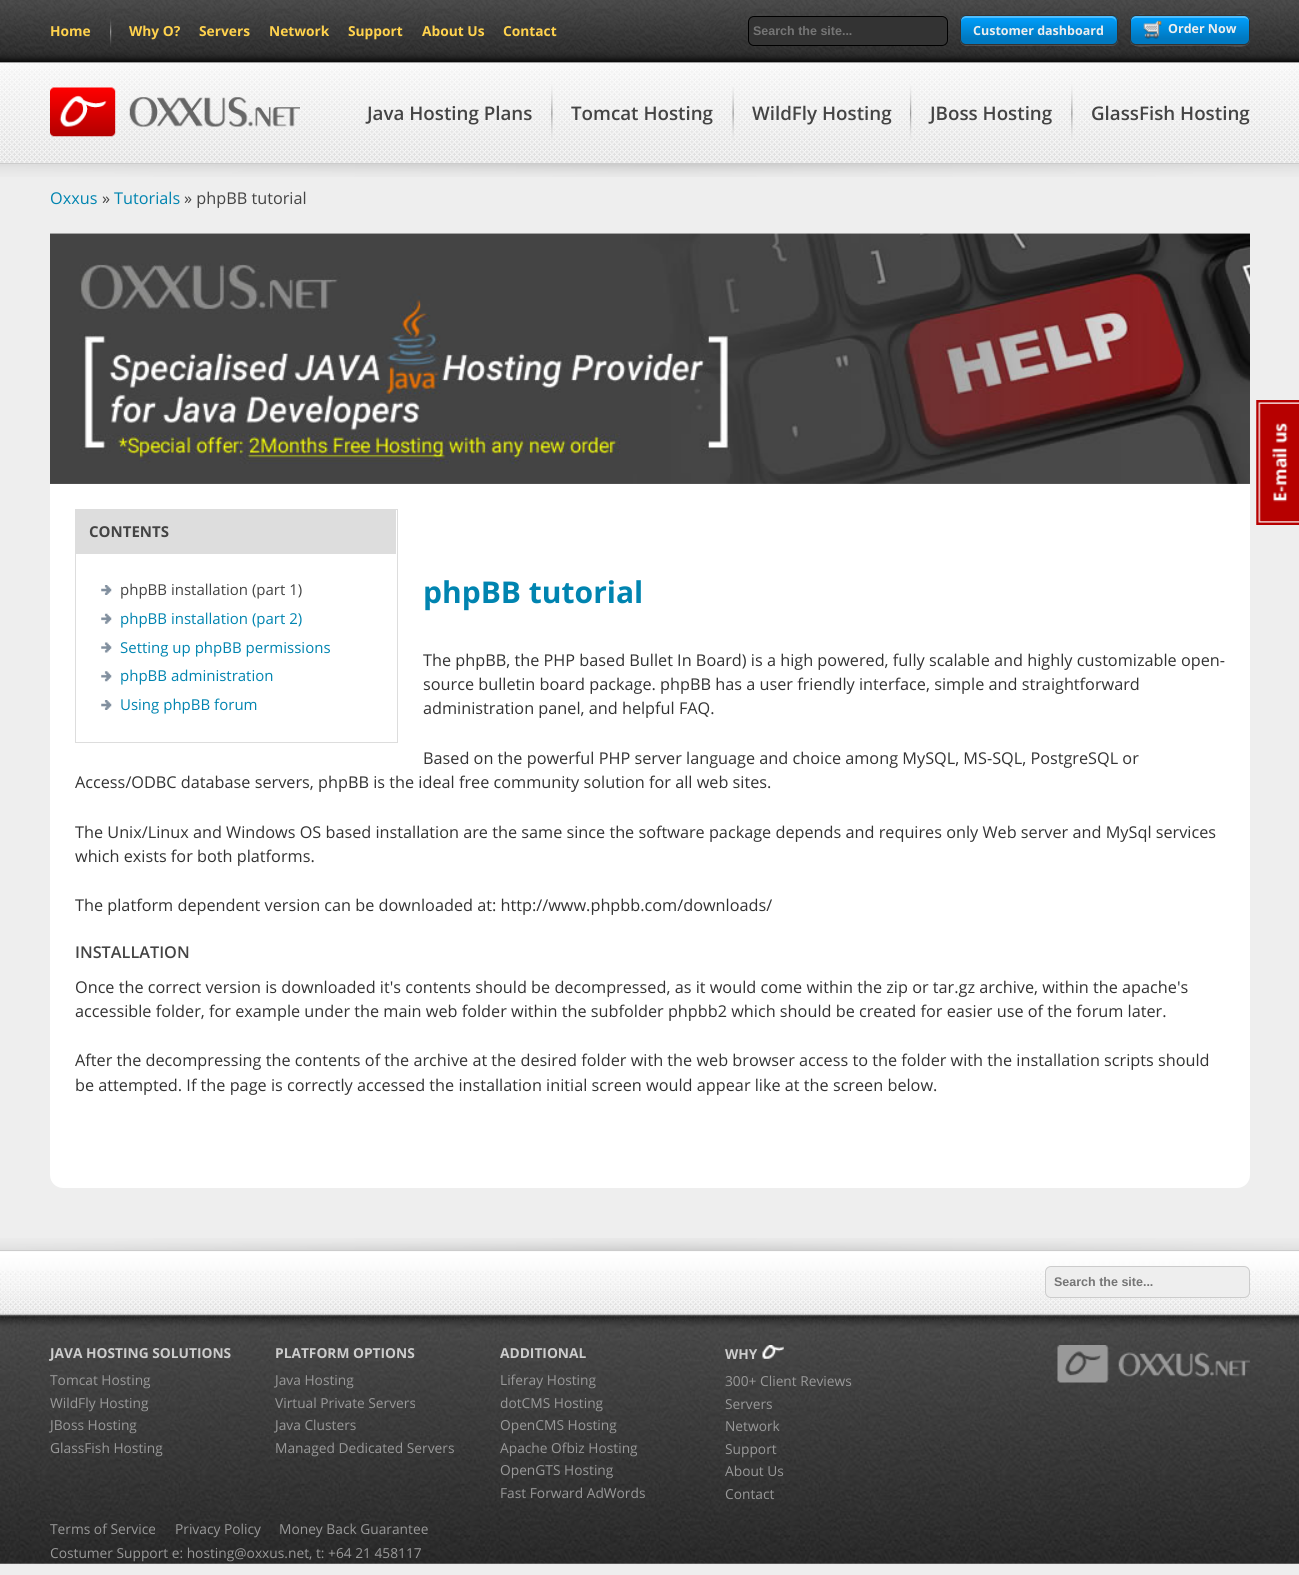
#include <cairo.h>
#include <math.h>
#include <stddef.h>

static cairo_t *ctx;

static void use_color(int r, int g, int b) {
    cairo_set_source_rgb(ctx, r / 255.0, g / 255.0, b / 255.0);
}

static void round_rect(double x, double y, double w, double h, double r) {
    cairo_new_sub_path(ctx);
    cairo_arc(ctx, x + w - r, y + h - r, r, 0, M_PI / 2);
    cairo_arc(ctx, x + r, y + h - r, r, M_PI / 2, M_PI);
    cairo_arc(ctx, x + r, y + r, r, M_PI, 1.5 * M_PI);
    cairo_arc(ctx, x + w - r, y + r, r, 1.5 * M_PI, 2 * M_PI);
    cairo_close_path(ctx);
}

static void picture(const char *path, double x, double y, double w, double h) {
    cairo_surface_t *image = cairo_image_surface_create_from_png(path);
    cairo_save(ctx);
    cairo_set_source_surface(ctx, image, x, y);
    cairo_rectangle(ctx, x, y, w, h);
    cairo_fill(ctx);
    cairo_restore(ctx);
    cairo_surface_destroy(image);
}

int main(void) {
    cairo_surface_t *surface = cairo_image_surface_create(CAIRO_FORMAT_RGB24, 1299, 1575);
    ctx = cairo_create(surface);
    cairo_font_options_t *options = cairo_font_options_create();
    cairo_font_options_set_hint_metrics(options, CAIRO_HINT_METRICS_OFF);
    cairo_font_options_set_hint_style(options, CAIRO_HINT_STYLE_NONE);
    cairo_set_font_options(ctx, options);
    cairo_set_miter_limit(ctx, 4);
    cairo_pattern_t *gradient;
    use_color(238, 238, 238);
    cairo_paint(ctx);
    picture("img1.png", 0, 0, 1299, 62);
    use_color(70, 70, 70);
    cairo_rectangle(ctx, 0, 62, 1299, 1);
    cairo_fill(ctx);
    cairo_select_font_face(ctx, "Open Sans", CAIRO_FONT_SLANT_NORMAL, CAIRO_FONT_WEIGHT_BOLD);
    cairo_set_font_size(ctx, 13.75);
    use_color(255, 210, 77);
    cairo_move_to(ctx, 50, 36);
    cairo_show_text(ctx, "Home");
    picture("img2.png", 110, 19, 2, 28);
    cairo_move_to(ctx, 129, 36);
    cairo_show_text(ctx, "Why O?");
    cairo_move_to(ctx, 199, 36);
    cairo_show_text(ctx, "Servers");
    cairo_move_to(ctx, 269, 36);
    cairo_show_text(ctx, "Network");
    cairo_move_to(ctx, 348, 36);
    cairo_show_text(ctx, "Support");
    cairo_move_to(ctx, 422, 36);
    cairo_show_text(ctx, "About Us");
    cairo_move_to(ctx, 503, 36);
    cairo_show_text(ctx, "Contact");
    use_color(51, 51, 51);
    round_rect(748.5, 16.5, 199, 29, 5.5);
    cairo_fill_preserve(ctx);
    use_color(0, 0, 0);
    cairo_set_line_width(ctx, 1);
    cairo_stroke(ctx);
    cairo_select_font_face(ctx, "Liberation Sans", CAIRO_FONT_SLANT_NORMAL, CAIRO_FONT_WEIGHT_BOLD);
    cairo_set_font_size(ctx, 12.5);
    use_color(117, 117, 117);
    cairo_move_to(ctx, 753, 35);
    cairo_show_text(ctx, "Search the site...");
    cairo_set_source_rgba(ctx, 1, 1, 1, 0.15);
    cairo_new_path(ctx);
    cairo_move_to(ctx, 960, 39);
    cairo_line_to(ctx, 960, 40);
    cairo_curve_to(ctx, 960, 43, 963, 46, 966, 46);
    cairo_line_to(ctx, 1112, 46);
    cairo_curve_to(ctx, 1115, 46, 1118, 43, 1118, 40);
    cairo_line_to(ctx, 1118, 22);
    cairo_curve_to(ctx, 1118, 21, 1118, 19, 1117, 18);
    cairo_line_to(ctx, 1118, 21);
    cairo_line_to(ctx, 1118, 39);
    cairo_curve_to(ctx, 1118, 42, 1115, 45, 1111, 45);
    cairo_line_to(ctx, 966, 45);
    cairo_curve_to(ctx, 963, 45, 960, 42, 960, 39);
    cairo_close_path(ctx);
    cairo_fill(ctx);
    cairo_save(ctx);
    round_rect(960, 15, 158, 30, 6);
    cairo_clip(ctx);
    gradient = cairo_pattern_create_linear(1039, 16, 1039, 44);
    cairo_pattern_add_color_stop_rgba(gradient, 0, 0, 0.631, 1, 1);
    cairo_pattern_add_color_stop_rgba(gradient, 0.8, 0, 0.475, 0.757, 1);
    cairo_pattern_add_color_stop_rgba(gradient, 1, 0, 0.475, 0.757, 1);
    cairo_set_source(ctx, gradient);
    cairo_pattern_destroy(gradient);
    cairo_rectangle(ctx, 960, 16, 158, 28);
    cairo_fill(ctx);
    cairo_restore(ctx);
    use_color(77, 190, 255);
    cairo_new_path(ctx);
    cairo_move_to(ctx, 966, 18);
    cairo_line_to(ctx, 1111, 18);
    cairo_curve_to(ctx, 1114, 18, 1116, 20, 1116, 22);
    cairo_line_to(ctx, 1116, 21);
    cairo_curve_to(ctx, 1116, 18, 1114, 16, 1111, 16);
    cairo_line_to(ctx, 966, 16);
    cairo_curve_to(ctx, 963, 16, 961, 18, 961, 21);
    cairo_line_to(ctx, 961, 22);
    cairo_curve_to(ctx, 961, 20, 963, 18, 966, 18);
    cairo_close_path(ctx);
    cairo_fill(ctx);
    round_rect(960.5, 15.5, 157, 29, 5.5);
    use_color(51, 51, 51);
    cairo_stroke(ctx);
    cairo_select_font_face(ctx, "Open Sans", CAIRO_FONT_SLANT_NORMAL, CAIRO_FONT_WEIGHT_BOLD);
    use_color(238, 238, 238);
    cairo_move_to(ctx, 973, 35);
    cairo_show_text(ctx, "Customer dashboard");
    cairo_set_source_rgba(ctx, 1, 1, 1, 0.15);
    cairo_new_path(ctx);
    cairo_move_to(ctx, 1130, 39);
    cairo_curve_to(ctx, 1130, 50, 1147, 46, 1154, 46);
    cairo_line_to(ctx, 1226, 46);
    cairo_curve_to(ctx, 1233, 46, 1250, 50, 1250, 39);
    cairo_curve_to(ctx, 1250, 42, 1247, 45, 1244, 45);
    cairo_line_to(ctx, 1136, 45);
    cairo_curve_to(ctx, 1133, 45, 1130, 42, 1130, 39);
    cairo_close_path(ctx);
    cairo_fill(ctx);
    cairo_save(ctx);
    round_rect(1130, 15, 120, 30, 6);
    cairo_clip(ctx);
    gradient = cairo_pattern_create_linear(1190, 16, 1190, 44);
    cairo_pattern_add_color_stop_rgba(gradient, 0, 0, 0.631, 1, 1);
    cairo_pattern_add_color_stop_rgba(gradient, 0.8, 0, 0.475, 0.757, 1);
    cairo_pattern_add_color_stop_rgba(gradient, 1, 0, 0.475, 0.757, 1);
    cairo_set_source(ctx, gradient);
    cairo_pattern_destroy(gradient);
    cairo_rectangle(ctx, 1130, 16, 120, 28);
    cairo_fill(ctx);
    cairo_restore(ctx);
    use_color(77, 190, 255);
    cairo_new_path(ctx);
    cairo_move_to(ctx, 1136, 18);
    cairo_line_to(ctx, 1244, 18);
    cairo_curve_to(ctx, 1247, 18, 1249, 20, 1249, 22);
    cairo_curve_to(ctx, 1249, 11, 1231, 16, 1226, 16);
    cairo_line_to(ctx, 1154, 16);
    cairo_curve_to(ctx, 1149, 16, 1131, 11, 1131, 22);
    cairo_curve_to(ctx, 1131, 20, 1133, 18, 1136, 18);
    cairo_close_path(ctx);
    cairo_fill(ctx);
    round_rect(1130.5, 15.5, 119, 29, 5.5);
    use_color(51, 51, 51);
    cairo_stroke(ctx);
    picture("img3.png", 1143, 21, 19, 18);
    use_color(238, 238, 238);
    cairo_move_to(ctx, 1168, 33);
    cairo_show_text(ctx, "Order Now");
    picture("img4.png", 0, 62, 1299, 101);
    picture("img5.png", 50, 87, 250, 50);
    cairo_select_font_face(ctx, "Open Sans SemiBold", CAIRO_FONT_SLANT_NORMAL, CAIRO_FONT_WEIGHT_NORMAL);
    cairo_set_font_size(ctx, 18.75);
    use_color(68, 68, 68);
    cairo_move_to(ctx, 367, 120);
    cairo_show_text(ctx, "Java Hosting Plans");
    picture("img6.png", 551, 84, 2, 56);
    cairo_move_to(ctx, 571, 120);
    cairo_show_text(ctx, "Tomcat Hosting");
    picture("img7.png", 732, 87, 2, 54);
    cairo_move_to(ctx, 752, 120);
    cairo_show_text(ctx, "WildFly Hosting");
    picture("img8.png", 910, 85, 2, 56);
    cairo_move_to(ctx, 930, 120);
    cairo_show_text(ctx, "JBoss Hosting");
    picture("img9.png", 1071, 84, 2, 56);
    cairo_move_to(ctx, 1091, 120);
    cairo_show_text(ctx, "GlassFish Hosting");
    picture("img10.png", 0, 164, 1299, 13);
    use_color(204, 204, 204);
    cairo_rectangle(ctx, 0, 163, 1299, 1);
    cairo_fill(ctx);
    cairo_select_font_face(ctx, "Open Sans", CAIRO_FONT_SLANT_NORMAL, CAIRO_FONT_WEIGHT_NORMAL);
    cairo_set_font_size(ctx, 16.25);
    use_color(0, 132, 176);
    cairo_move_to(ctx, 50, 204);
    cairo_show_text(ctx, "Oxxus");
    use_color(68, 68, 68);
    cairo_move_to(ctx, 102, 204);
    cairo_show_text(ctx, "»");
    use_color(0, 132, 176);
    cairo_move_to(ctx, 114, 204);
    cairo_show_text(ctx, "Tutorials");
    use_color(68, 68, 68);
    cairo_move_to(ctx, 184, 204);
    cairo_show_text(ctx, "» phpBB tutorial");
    use_color(255, 255, 255);
    round_rect(50, 234, 1200, 954, 13);
    cairo_fill(ctx);
    picture("img11.png", 50, 233, 1200, 251);
    picture("img12.png", 50, 233, 1200, 251);
    cairo_rectangle(ctx, 75.5, 509.5, 322, 233);
    use_color(221, 221, 221);
    cairo_stroke(ctx);
    cairo_rectangle(ctx, 76, 510, 320, 44);
    cairo_fill(ctx);
    cairo_select_font_face(ctx, "Open Sans", CAIRO_FONT_SLANT_NORMAL, CAIRO_FONT_WEIGHT_BOLD);
    cairo_set_font_size(ctx, 15);
    use_color(68, 68, 68);
    cairo_move_to(ctx, 89, 537);
    cairo_show_text(ctx, "CONTENTS");
    picture("img13.png", 101, 585, 11, 10);
    cairo_select_font_face(ctx, "Open Sans", CAIRO_FONT_SLANT_NORMAL, CAIRO_FONT_WEIGHT_NORMAL);
    cairo_move_to(ctx, 120, 595);
    cairo_show_text(ctx, "phpBB installation (part 1)");
    picture("img14.png", 101, 613, 11, 11);
    use_color(0, 132, 176);
    cairo_move_to(ctx, 120, 624);
    cairo_show_text(ctx, "phpBB installation (part 2)");
    picture("img15.png", 101, 642, 11, 11);
    cairo_move_to(ctx, 120, 653);
    cairo_show_text(ctx, "Setting up phpBB permissions");
    picture("img16.png", 101, 671, 11, 11);
    cairo_move_to(ctx, 120, 681);
    cairo_show_text(ctx, "phpBB administration");
    picture("img17.png", 101, 700, 11, 10);
    cairo_move_to(ctx, 120, 710);
    cairo_show_text(ctx, "Using phpBB forum");
    cairo_select_font_face(ctx, "Open Sans", CAIRO_FONT_SLANT_NORMAL, CAIRO_FONT_WEIGHT_BOLD);
    cairo_set_font_size(ctx, 30);
    cairo_move_to(ctx, 423, 603);
    cairo_show_text(ctx, "phpBB tutorial");
    cairo_select_font_face(ctx, "Open Sans", CAIRO_FONT_SLANT_NORMAL, CAIRO_FONT_WEIGHT_NORMAL);
    cairo_set_font_size(ctx, 16.25);
    use_color(51, 51, 51);
    cairo_move_to(ctx, 423, 666);
    cairo_show_text(ctx, "The phpBB, the PHP based Bullet In Board) is a high powered, fully scalable and highly customizable open-");
    cairo_move_to(ctx, 423, 690);
    cairo_show_text(ctx, "source bulletin board package. phpBB has a user friendly interface, simple and straightforward");
    cairo_move_to(ctx, 423, 714);
    cairo_show_text(ctx, "administration panel, and helpful FAQ.");
    cairo_move_to(ctx, 423, 764);
    cairo_show_text(ctx, "Based on the powerful PHP server language and choice among MySQL, MS-SQL, PostgreSQL or");
    cairo_move_to(ctx, 75, 788);
    cairo_show_text(ctx, "Access/ODBC database servers, phpBB is the ideal free community solution for all web sites.");
    cairo_move_to(ctx, 75, 838);
    cairo_show_text(ctx, "The Unix/Linux and Windows OS based installation are the same since the software package depends and requires only Web server and MySql services");
    cairo_move_to(ctx, 75, 862);
    cairo_show_text(ctx, "which exists for both platforms.");
    cairo_move_to(ctx, 75, 911);
    cairo_show_text(ctx, "The platform dependent version can be downloaded at: http://www.phpbb.com/downloads/");
    cairo_select_font_face(ctx, "Open Sans SemiBold", CAIRO_FONT_SLANT_NORMAL, CAIRO_FONT_WEIGHT_NORMAL);
    use_color(68, 68, 68);
    cairo_move_to(ctx, 75, 958);
    cairo_show_text(ctx, "INSTALLATION");
    cairo_select_font_face(ctx, "Open Sans", CAIRO_FONT_SLANT_NORMAL, CAIRO_FONT_WEIGHT_NORMAL);
    use_color(51, 51, 51);
    cairo_move_to(ctx, 75, 993);
    cairo_show_text(ctx, "Once the correct version is downloaded it's contents should be decompressed, as it would come within the zip or tar.gz archive, within the apache's");
    cairo_move_to(ctx, 75, 1017);
    cairo_show_text(ctx, "accessible folder, for example under the main web folder within the subfolder phpbb2 which should be created for easier use of the forum later.");
    cairo_move_to(ctx, 75, 1066);
    cairo_show_text(ctx, "After the decompressing the contents of the archive at the desired folder with the web browser access to the folder with the installation scripts should");
    cairo_move_to(ctx, 75, 1091);
    cairo_show_text(ctx, "be attempted. If the page is correctly accessed the installation initial screen would appear like at the screen below.");
    picture("img18.png", 0, 1238, 1299, 12);
    picture("img19.png", 1256, 400, 43, 125);
    picture("img20.png", 0, 1251, 1299, 313);
    use_color(204, 204, 204);
    cairo_rectangle(ctx, 0, 1250, 1299, 1);
    cairo_fill(ctx);
    use_color(238, 238, 238);
    round_rect(1045.5, 1266.5, 204, 31, 5.5);
    cairo_fill_preserve(ctx);
    use_color(204, 204, 204);
    cairo_stroke(ctx);
    cairo_select_font_face(ctx, "Liberation Sans", CAIRO_FONT_SLANT_NORMAL, CAIRO_FONT_WEIGHT_BOLD);
    cairo_set_font_size(ctx, 12.5);
    use_color(117, 117, 117);
    cairo_move_to(ctx, 1054, 1286);
    cairo_show_text(ctx, "Search the site...");
    cairo_select_font_face(ctx, "Open Sans", CAIRO_FONT_SLANT_NORMAL, CAIRO_FONT_WEIGHT_BOLD);
    cairo_set_font_size(ctx, 13.75);
    use_color(204, 204, 204);
    cairo_move_to(ctx, 50, 1358);
    cairo_show_text(ctx, "JAVA HOSTING SOLUTIONS");
    cairo_select_font_face(ctx, "Open Sans", CAIRO_FONT_SLANT_NORMAL, CAIRO_FONT_WEIGHT_NORMAL);
    use_color(153, 153, 153);
    cairo_move_to(ctx, 50, 1385);
    cairo_show_text(ctx, "Tomcat Hosting");
    cairo_move_to(ctx, 50, 1408);
    cairo_show_text(ctx, "WildFly Hosting");
    cairo_move_to(ctx, 50, 1430);
    cairo_show_text(ctx, "JBoss Hosting");
    cairo_move_to(ctx, 50, 1453);
    cairo_show_text(ctx, "GlassFish Hosting");
    cairo_select_font_face(ctx, "Open Sans", CAIRO_FONT_SLANT_NORMAL, CAIRO_FONT_WEIGHT_BOLD);
    use_color(204, 204, 204);
    cairo_move_to(ctx, 275, 1358);
    cairo_show_text(ctx, "PLATFORM OPTIONS");
    cairo_select_font_face(ctx, "Open Sans", CAIRO_FONT_SLANT_NORMAL, CAIRO_FONT_WEIGHT_NORMAL);
    use_color(153, 153, 153);
    cairo_move_to(ctx, 275, 1385);
    cairo_show_text(ctx, "Java Hosting");
    cairo_move_to(ctx, 275, 1408);
    cairo_show_text(ctx, "Virtual Private Servers");
    cairo_move_to(ctx, 275, 1430);
    cairo_show_text(ctx, "Java Clusters");
    cairo_move_to(ctx, 275, 1453);
    cairo_show_text(ctx, "Managed Dedicated Servers");
    cairo_select_font_face(ctx, "Open Sans", CAIRO_FONT_SLANT_NORMAL, CAIRO_FONT_WEIGHT_BOLD);
    use_color(204, 204, 204);
    cairo_move_to(ctx, 500, 1358);
    cairo_show_text(ctx, "ADDITIONAL");
    cairo_select_font_face(ctx, "Open Sans", CAIRO_FONT_SLANT_NORMAL, CAIRO_FONT_WEIGHT_NORMAL);
    use_color(153, 153, 153);
    cairo_move_to(ctx, 500, 1385);
    cairo_show_text(ctx, "Liferay Hosting");
    cairo_move_to(ctx, 500, 1408);
    cairo_show_text(ctx, "dotCMS Hosting");
    cairo_move_to(ctx, 500, 1430);
    cairo_show_text(ctx, "OpenCMS Hosting");
    cairo_move_to(ctx, 500, 1453);
    cairo_show_text(ctx, "Apache Ofbiz Hosting");
    cairo_move_to(ctx, 500, 1475);
    cairo_show_text(ctx, "OpenGTS Hosting");
    cairo_move_to(ctx, 500, 1498);
    cairo_show_text(ctx, "Fast Forward AdWords");
    cairo_select_font_face(ctx, "Open Sans", CAIRO_FONT_SLANT_NORMAL, CAIRO_FONT_WEIGHT_BOLD);
    use_color(204, 204, 204);
    cairo_move_to(ctx, 725, 1359);
    cairo_show_text(ctx, "WHY");
    picture("img21.png", 762, 1345, 22, 14);
    cairo_select_font_face(ctx, "Open Sans", CAIRO_FONT_SLANT_NORMAL, CAIRO_FONT_WEIGHT_NORMAL);
    use_color(153, 153, 153);
    cairo_move_to(ctx, 725, 1386);
    cairo_show_text(ctx, "300+ Client Reviews");
    cairo_move_to(ctx, 725, 1409);
    cairo_show_text(ctx, "Servers");
    cairo_move_to(ctx, 725, 1431);
    cairo_show_text(ctx, "Network");
    cairo_move_to(ctx, 725, 1454);
    cairo_show_text(ctx, "Support");
    cairo_move_to(ctx, 725, 1476);
    cairo_show_text(ctx, "About Us");
    cairo_move_to(ctx, 725, 1499);
    cairo_show_text(ctx, "Contact");
    picture("img22.png", 1057, 1345, 193, 38);
    cairo_move_to(ctx, 50, 1534);
    cairo_show_text(ctx, "Terms of Service");
    cairo_move_to(ctx, 175, 1534);
    cairo_show_text(ctx, "Privacy Policy");
    cairo_move_to(ctx, 279, 1534);
    cairo_show_text(ctx, "Money Back Guarantee");
    cairo_move_to(ctx, 50, 1558);
    cairo_show_text(ctx, "Costumer Support e: hosting@oxxus.net, t: +64 21 458117");
    cairo_surface_write_to_png(surface, "result.png");
    cairo_font_options_destroy(options);
    cairo_destroy(ctx);
    cairo_surface_destroy(surface);
    return 0;
}
